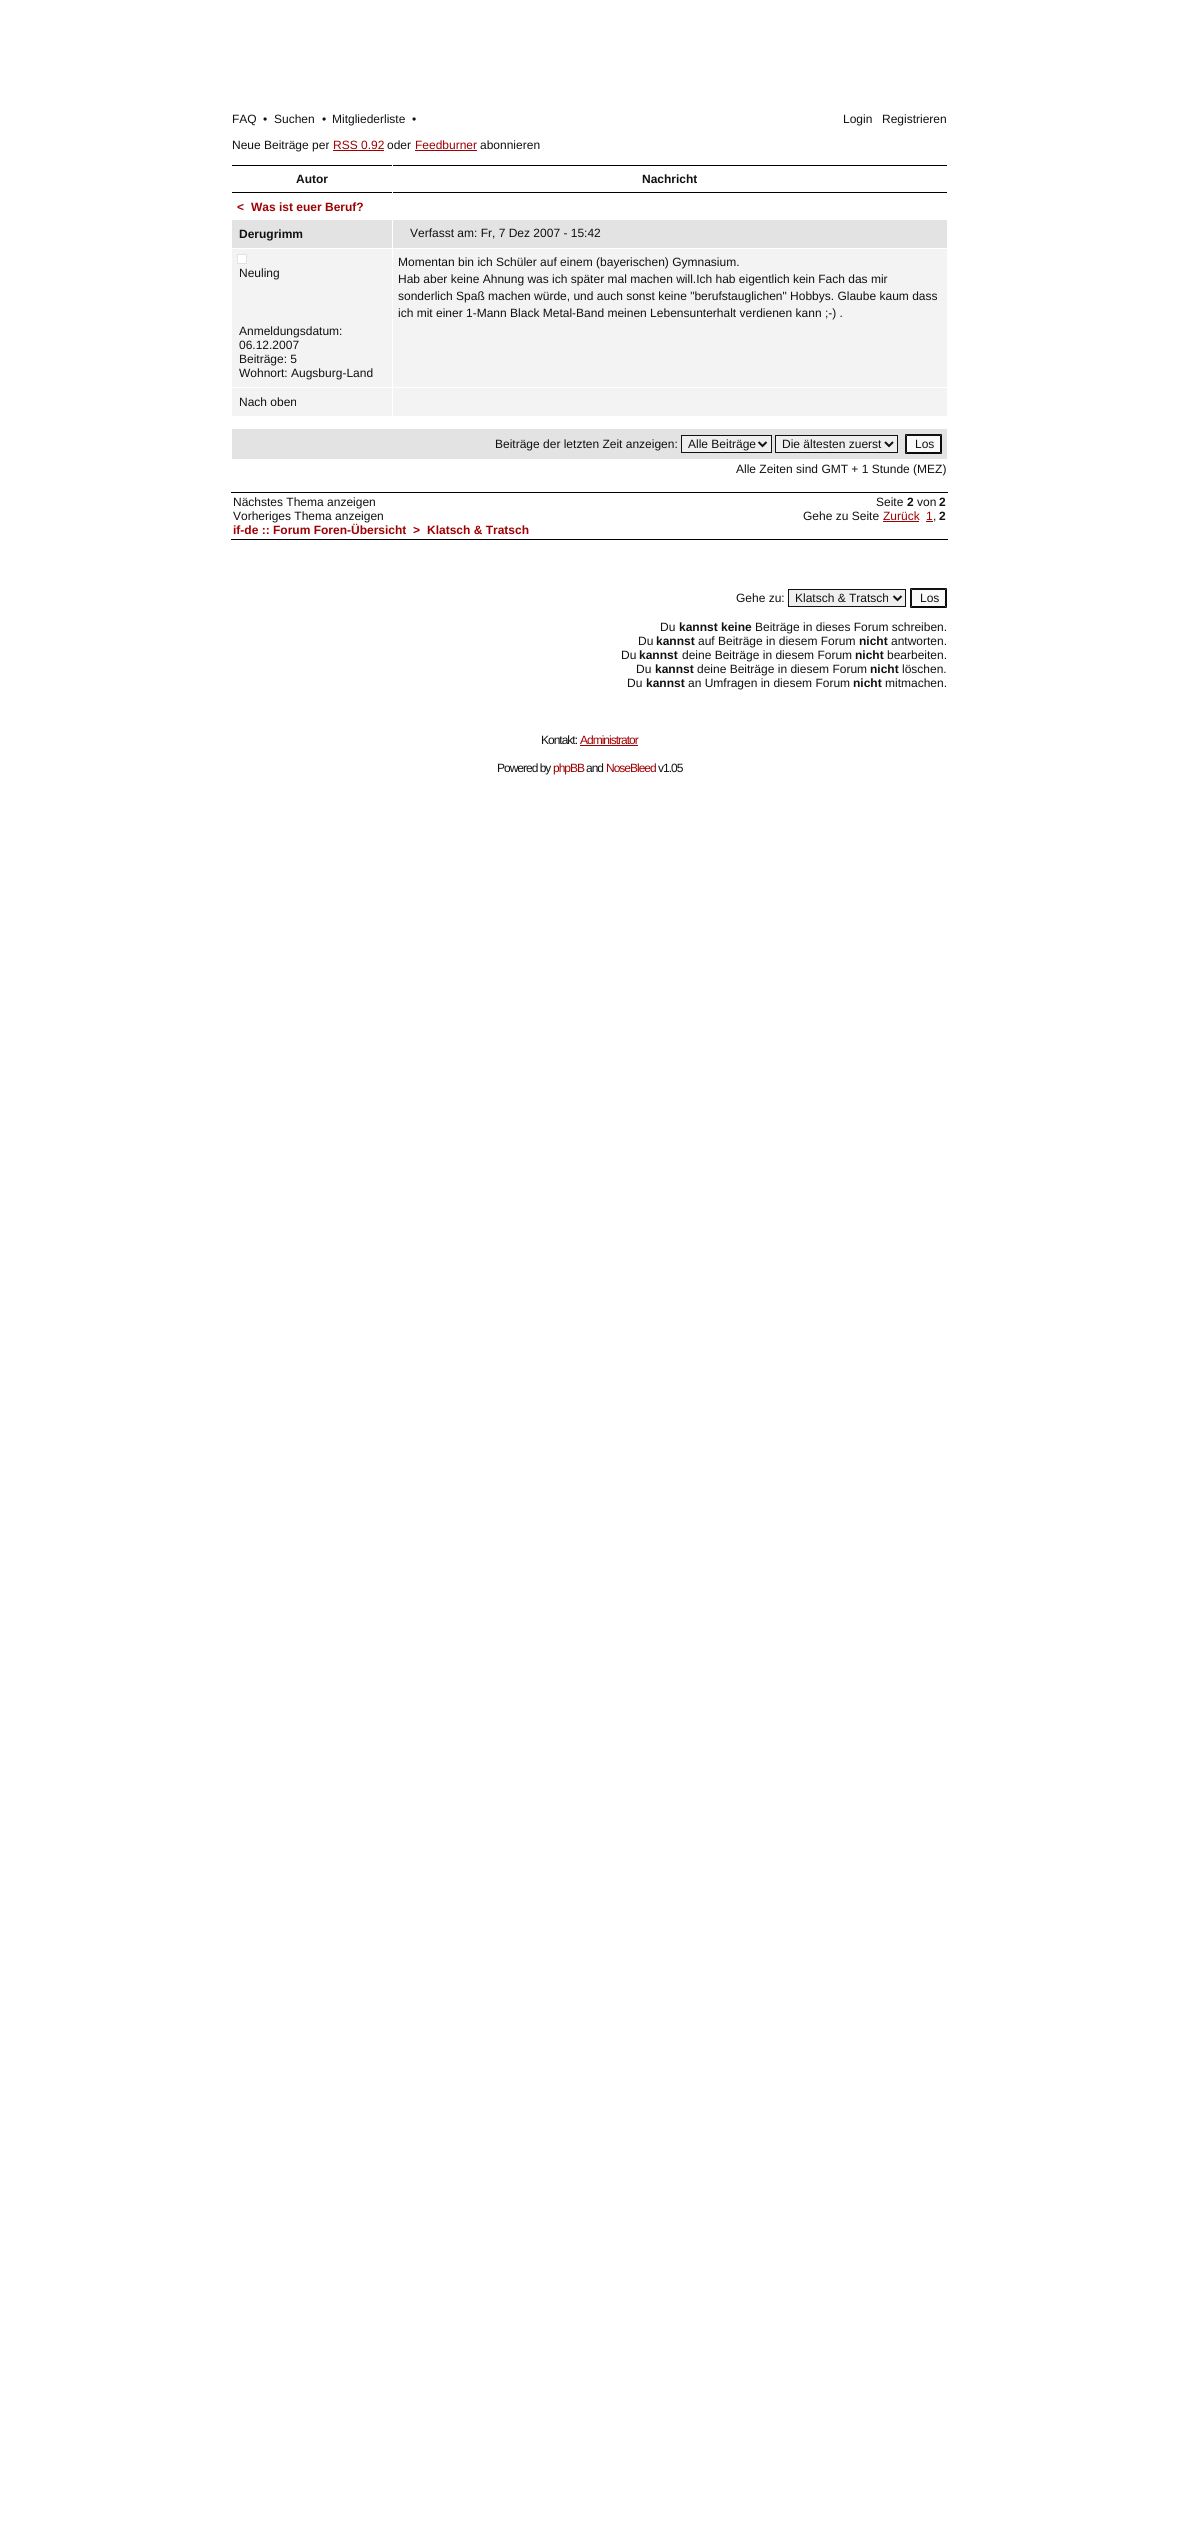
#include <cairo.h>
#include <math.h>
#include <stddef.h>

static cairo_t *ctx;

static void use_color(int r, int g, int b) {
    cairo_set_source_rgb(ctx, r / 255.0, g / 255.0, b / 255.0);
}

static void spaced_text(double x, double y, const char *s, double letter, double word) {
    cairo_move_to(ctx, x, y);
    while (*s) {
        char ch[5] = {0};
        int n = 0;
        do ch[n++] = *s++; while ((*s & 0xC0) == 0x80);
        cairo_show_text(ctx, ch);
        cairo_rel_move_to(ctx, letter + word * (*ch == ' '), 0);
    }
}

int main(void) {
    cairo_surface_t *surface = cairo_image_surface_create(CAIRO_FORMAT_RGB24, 1179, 2525);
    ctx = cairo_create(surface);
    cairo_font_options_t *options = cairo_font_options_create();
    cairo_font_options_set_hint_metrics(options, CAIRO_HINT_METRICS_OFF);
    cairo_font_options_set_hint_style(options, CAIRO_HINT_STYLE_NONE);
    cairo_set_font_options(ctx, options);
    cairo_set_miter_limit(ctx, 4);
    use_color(255, 255, 255);
    cairo_paint(ctx);
    cairo_select_font_face(ctx, "Liberation Sans", CAIRO_FONT_SLANT_NORMAL, CAIRO_FONT_WEIGHT_NORMAL);
    cairo_set_font_size(ctx, 12);
    use_color(17, 17, 17);
    cairo_move_to(ctx, 232, 123);
    cairo_show_text(ctx, "FAQ");
    cairo_move_to(ctx, 263, 123);
    cairo_show_text(ctx, "•");
    cairo_move_to(ctx, 274, 123);
    cairo_show_text(ctx, "Suchen");
    cairo_move_to(ctx, 322, 123);
    cairo_show_text(ctx, "•");
    cairo_move_to(ctx, 332, 123);
    cairo_show_text(ctx, "Mitgliederliste");
    cairo_move_to(ctx, 412, 123);
    cairo_show_text(ctx, "•");
    cairo_move_to(ctx, 843, 123);
    cairo_show_text(ctx, "Login");
    cairo_move_to(ctx, 882, 123);
    cairo_show_text(ctx, "Registrieren");
    cairo_move_to(ctx, 232, 149);
    cairo_show_text(ctx, "Neue Beiträge per");
    use_color(159, 0, 2);
    cairo_move_to(ctx, 333, 149);
    cairo_show_text(ctx, "RSS 0.92");
    cairo_rectangle(ctx, 333, 150, 51, 1);
    cairo_fill(ctx);
    use_color(17, 17, 17);
    cairo_move_to(ctx, 387, 149);
    cairo_show_text(ctx, "oder");
    use_color(159, 0, 2);
    cairo_move_to(ctx, 415, 149);
    cairo_show_text(ctx, "Feedburner");
    cairo_rectangle(ctx, 415, 150, 62, 1);
    cairo_fill(ctx);
    use_color(17, 17, 17);
    cairo_move_to(ctx, 480, 149);
    cairo_show_text(ctx, "abonnieren");
    use_color(0, 0, 0);
    cairo_rectangle(ctx, 232, 165, 160, 1);
    cairo_fill(ctx);
    cairo_rectangle(ctx, 232, 192, 160, 1);
    cairo_fill(ctx);
    cairo_select_font_face(ctx, "Liberation Sans", CAIRO_FONT_SLANT_NORMAL, CAIRO_FONT_WEIGHT_BOLD);
    use_color(17, 17, 17);
    cairo_move_to(ctx, 296, 183);
    cairo_show_text(ctx, "Autor");
    use_color(0, 0, 0);
    cairo_rectangle(ctx, 393, 165, 554, 1);
    cairo_fill(ctx);
    cairo_rectangle(ctx, 393, 192, 554, 1);
    cairo_fill(ctx);
    use_color(17, 17, 17);
    cairo_move_to(ctx, 642, 183);
    cairo_show_text(ctx, "Nachricht");
    use_color(159, 0, 2);
    cairo_move_to(ctx, 237, 211);
    cairo_show_text(ctx, "<");
    cairo_move_to(ctx, 251, 211);
    cairo_show_text(ctx, "Was ist euer Beruf?");
    use_color(227, 227, 227);
    cairo_rectangle(ctx, 232, 220, 160, 28);
    cairo_fill(ctx);
    use_color(17, 17, 17);
    cairo_move_to(ctx, 239, 238);
    cairo_show_text(ctx, "Derugrimm");
    use_color(227, 227, 227);
    cairo_rectangle(ctx, 393, 220, 554, 28);
    cairo_fill(ctx);
    cairo_select_font_face(ctx, "Liberation Sans", CAIRO_FONT_SLANT_NORMAL, CAIRO_FONT_WEIGHT_NORMAL);
    use_color(17, 17, 17);
    cairo_move_to(ctx, 410, 237);
    cairo_show_text(ctx, "Verfasst am: Fr, 7 Dez 2007 - 15:42");
    use_color(243, 243, 243);
    cairo_rectangle(ctx, 232, 249, 160, 138);
    cairo_fill(ctx);
    use_color(227, 227, 227);
    cairo_rectangle(ctx, 237, 254, 10, 10);
    cairo_fill(ctx);
    use_color(255, 255, 255);
    cairo_rectangle(ctx, 238, 255, 8, 8);
    cairo_fill(ctx);
    use_color(17, 17, 17);
    cairo_move_to(ctx, 239, 277);
    cairo_show_text(ctx, "Neuling");
    cairo_move_to(ctx, 239, 335);
    cairo_show_text(ctx, "Anmeldungsdatum:");
    cairo_move_to(ctx, 239, 349);
    cairo_show_text(ctx, "06.12.2007");
    cairo_move_to(ctx, 239, 363);
    cairo_show_text(ctx, "Beiträge: 5");
    cairo_move_to(ctx, 239, 377);
    cairo_show_text(ctx, "Wohnort: Augsburg-Land");
    use_color(243, 243, 243);
    cairo_rectangle(ctx, 393, 249, 554, 138);
    cairo_fill(ctx);
    use_color(17, 17, 17);
    cairo_move_to(ctx, 398, 266);
    cairo_show_text(ctx, "Momentan bin ich Schüler auf einem (bayerischen) Gymnasium.");
    cairo_move_to(ctx, 398, 283);
    cairo_show_text(ctx, "Hab aber keine Ahnung was ich später mal machen will.Ich hab eigentlich kein Fach das mir");
    cairo_move_to(ctx, 398, 300);
    cairo_show_text(ctx, "sonderlich Spaß machen würde, und auch sonst keine \"berufstauglichen\" Hobbys. Glaube kaum dass");
    cairo_move_to(ctx, 398, 317);
    cairo_show_text(ctx, "ich mit einer 1-Mann Black Metal-Band meinen Lebensunterhalt verdienen kann ;-) .");
    use_color(243, 243, 243);
    cairo_rectangle(ctx, 232, 388, 160, 28);
    cairo_fill(ctx);
    use_color(17, 17, 17);
    cairo_move_to(ctx, 239, 406);
    cairo_show_text(ctx, "Nach oben");
    use_color(243, 243, 243);
    cairo_rectangle(ctx, 393, 388, 554, 28);
    cairo_fill(ctx);
    use_color(227, 227, 227);
    cairo_rectangle(ctx, 232, 429, 715, 30);
    cairo_fill(ctx);
    use_color(17, 17, 17);
    cairo_move_to(ctx, 495, 448);
    cairo_show_text(ctx, "Beiträge der letzten Zeit anzeigen:");
    use_color(239, 239, 239);
    cairo_rectangle(ctx, 681.5, 435.5, 90, 17);
    cairo_fill_preserve(ctx);
    use_color(17, 17, 17);
    cairo_set_line_width(ctx, 1);
    cairo_stroke(ctx);
    cairo_new_path(ctx);
    cairo_move_to(ctx, 758.5, 442);
    cairo_line_to(ctx, 762.5, 446);
    cairo_line_to(ctx, 766.5, 442);
    cairo_set_line_width(ctx, 2);
    cairo_stroke(ctx);
    cairo_move_to(ctx, 688, 448);
    cairo_show_text(ctx, "Alle Beiträge");
    use_color(239, 239, 239);
    cairo_rectangle(ctx, 775.5, 435.5, 122, 17);
    cairo_fill_preserve(ctx);
    use_color(17, 17, 17);
    cairo_set_line_width(ctx, 1);
    cairo_stroke(ctx);
    cairo_new_path(ctx);
    cairo_move_to(ctx, 885, 442);
    cairo_line_to(ctx, 889, 446);
    cairo_line_to(ctx, 893, 442);
    cairo_set_line_width(ctx, 2);
    cairo_stroke(ctx);
    cairo_move_to(ctx, 782, 448);
    cairo_show_text(ctx, "Die ältesten zuerst");
    use_color(250, 250, 250);
    cairo_rectangle(ctx, 905, 434, 37, 20);
    cairo_fill(ctx);
    use_color(17, 17, 17);
    cairo_new_path(ctx);
    cairo_move_to(ctx, 905, 434);
    cairo_line_to(ctx, 942, 434);
    cairo_line_to(ctx, 940, 436);
    cairo_line_to(ctx, 907, 436);
    cairo_close_path(ctx);
    cairo_fill(ctx);
    use_color(11, 11, 11);
    cairo_new_path(ctx);
    cairo_move_to(ctx, 942, 434);
    cairo_line_to(ctx, 942, 454);
    cairo_line_to(ctx, 940, 452);
    cairo_line_to(ctx, 940, 436);
    cairo_close_path(ctx);
    cairo_fill(ctx);
    cairo_new_path(ctx);
    cairo_move_to(ctx, 942, 454);
    cairo_line_to(ctx, 905, 454);
    cairo_line_to(ctx, 907, 452);
    cairo_line_to(ctx, 940, 452);
    cairo_close_path(ctx);
    cairo_fill(ctx);
    use_color(17, 17, 17);
    cairo_new_path(ctx);
    cairo_move_to(ctx, 905, 454);
    cairo_line_to(ctx, 905, 434);
    cairo_line_to(ctx, 907, 436);
    cairo_line_to(ctx, 907, 452);
    cairo_close_path(ctx);
    cairo_fill(ctx);
    cairo_move_to(ctx, 915, 448);
    cairo_show_text(ctx, "Los");
    cairo_move_to(ctx, 736, 473);
    cairo_show_text(ctx, "Alle Zeiten sind GMT + 1 Stunde (MEZ)");
    use_color(0, 0, 0);
    cairo_rectangle(ctx, 231, 492, 717, 1);
    cairo_fill(ctx);
    cairo_rectangle(ctx, 231, 539, 717, 1);
    cairo_fill(ctx);
    use_color(17, 17, 17);
    cairo_move_to(ctx, 233, 506);
    cairo_show_text(ctx, "Nächstes Thema anzeigen");
    cairo_move_to(ctx, 233, 520);
    cairo_show_text(ctx, "Vorheriges Thema anzeigen");
    cairo_move_to(ctx, 876, 506);
    cairo_show_text(ctx, "Seite");
    cairo_select_font_face(ctx, "Liberation Sans", CAIRO_FONT_SLANT_NORMAL, CAIRO_FONT_WEIGHT_BOLD);
    cairo_move_to(ctx, 907, 506);
    cairo_show_text(ctx, "2");
    cairo_select_font_face(ctx, "Liberation Sans", CAIRO_FONT_SLANT_NORMAL, CAIRO_FONT_WEIGHT_NORMAL);
    cairo_move_to(ctx, 917, 506);
    cairo_show_text(ctx, "von");
    cairo_select_font_face(ctx, "Liberation Sans", CAIRO_FONT_SLANT_NORMAL, CAIRO_FONT_WEIGHT_BOLD);
    cairo_move_to(ctx, 939, 506);
    cairo_show_text(ctx, "2");
    cairo_select_font_face(ctx, "Liberation Sans", CAIRO_FONT_SLANT_NORMAL, CAIRO_FONT_WEIGHT_NORMAL);
    cairo_move_to(ctx, 803, 520);
    cairo_show_text(ctx, "Gehe zu Seite");
    use_color(159, 0, 2);
    cairo_move_to(ctx, 883, 520);
    cairo_show_text(ctx, "Zurück");
    cairo_rectangle(ctx, 883, 521, 36, 1);
    cairo_fill(ctx);
    cairo_move_to(ctx, 926, 520);
    cairo_show_text(ctx, "1");
    use_color(17, 17, 17);
    cairo_move_to(ctx, 933, 520);
    cairo_show_text(ctx, ",");
    use_color(159, 0, 2);
    cairo_rectangle(ctx, 926, 521, 7, 1);
    cairo_fill(ctx);
    cairo_select_font_face(ctx, "Liberation Sans", CAIRO_FONT_SLANT_NORMAL, CAIRO_FONT_WEIGHT_BOLD);
    use_color(17, 17, 17);
    cairo_move_to(ctx, 939, 520);
    cairo_show_text(ctx, "2");
    use_color(159, 0, 2);
    cairo_move_to(ctx, 233, 534);
    cairo_show_text(ctx, "if-de :: Forum Foren-Übersicht");
    cairo_move_to(ctx, 413, 534);
    cairo_show_text(ctx, ">");
    cairo_move_to(ctx, 427, 534);
    cairo_show_text(ctx, "Klatsch & Tratsch");
    cairo_select_font_face(ctx, "Liberation Sans", CAIRO_FONT_SLANT_NORMAL, CAIRO_FONT_WEIGHT_NORMAL);
    use_color(17, 17, 17);
    cairo_move_to(ctx, 736, 602);
    cairo_show_text(ctx, "Gehe zu:");
    use_color(239, 239, 239);
    cairo_rectangle(ctx, 788.5, 589.5, 117, 17);
    cairo_fill_preserve(ctx);
    use_color(17, 17, 17);
    cairo_set_line_width(ctx, 1);
    cairo_stroke(ctx);
    cairo_new_path(ctx);
    cairo_move_to(ctx, 893.5, 596);
    cairo_line_to(ctx, 897.5, 600);
    cairo_line_to(ctx, 901.5, 596);
    cairo_set_line_width(ctx, 2);
    cairo_stroke(ctx);
    cairo_move_to(ctx, 795, 602);
    cairo_show_text(ctx, "Klatsch & Tratsch");
    use_color(250, 250, 250);
    cairo_rectangle(ctx, 910, 588, 37, 20);
    cairo_fill(ctx);
    use_color(17, 17, 17);
    cairo_new_path(ctx);
    cairo_move_to(ctx, 910, 588);
    cairo_line_to(ctx, 947, 588);
    cairo_line_to(ctx, 945, 590);
    cairo_line_to(ctx, 912, 590);
    cairo_close_path(ctx);
    cairo_fill(ctx);
    use_color(11, 11, 11);
    cairo_new_path(ctx);
    cairo_move_to(ctx, 947, 588);
    cairo_line_to(ctx, 947, 608);
    cairo_line_to(ctx, 945, 606);
    cairo_line_to(ctx, 945, 590);
    cairo_close_path(ctx);
    cairo_fill(ctx);
    cairo_new_path(ctx);
    cairo_move_to(ctx, 947, 608);
    cairo_line_to(ctx, 910, 608);
    cairo_line_to(ctx, 912, 606);
    cairo_line_to(ctx, 945, 606);
    cairo_close_path(ctx);
    cairo_fill(ctx);
    use_color(17, 17, 17);
    cairo_new_path(ctx);
    cairo_move_to(ctx, 910, 608);
    cairo_line_to(ctx, 910, 588);
    cairo_line_to(ctx, 912, 590);
    cairo_line_to(ctx, 912, 606);
    cairo_close_path(ctx);
    cairo_fill(ctx);
    cairo_move_to(ctx, 920, 602);
    cairo_show_text(ctx, "Los");
    cairo_move_to(ctx, 660, 631);
    cairo_show_text(ctx, "Du");
    cairo_select_font_face(ctx, "Liberation Sans", CAIRO_FONT_SLANT_NORMAL, CAIRO_FONT_WEIGHT_BOLD);
    cairo_move_to(ctx, 679, 631);
    cairo_show_text(ctx, "kannst keine");
    cairo_select_font_face(ctx, "Liberation Sans", CAIRO_FONT_SLANT_NORMAL, CAIRO_FONT_WEIGHT_NORMAL);
    cairo_move_to(ctx, 755, 631);
    cairo_show_text(ctx, "Beiträge in dieses Forum schreiben.");
    cairo_move_to(ctx, 638, 645);
    cairo_show_text(ctx, "Du");
    cairo_select_font_face(ctx, "Liberation Sans", CAIRO_FONT_SLANT_NORMAL, CAIRO_FONT_WEIGHT_BOLD);
    cairo_move_to(ctx, 656, 645);
    cairo_show_text(ctx, "kannst");
    cairo_select_font_face(ctx, "Liberation Sans", CAIRO_FONT_SLANT_NORMAL, CAIRO_FONT_WEIGHT_NORMAL);
    cairo_move_to(ctx, 698, 645);
    cairo_show_text(ctx, "auf Beiträge in diesem Forum");
    cairo_select_font_face(ctx, "Liberation Sans", CAIRO_FONT_SLANT_NORMAL, CAIRO_FONT_WEIGHT_BOLD);
    cairo_move_to(ctx, 859, 645);
    cairo_show_text(ctx, "nicht");
    cairo_select_font_face(ctx, "Liberation Sans", CAIRO_FONT_SLANT_NORMAL, CAIRO_FONT_WEIGHT_NORMAL);
    cairo_move_to(ctx, 891, 645);
    cairo_show_text(ctx, "antworten.");
    cairo_move_to(ctx, 621, 659);
    cairo_show_text(ctx, "Du");
    cairo_select_font_face(ctx, "Liberation Sans", CAIRO_FONT_SLANT_NORMAL, CAIRO_FONT_WEIGHT_BOLD);
    cairo_move_to(ctx, 639, 659);
    cairo_show_text(ctx, "kannst");
    cairo_select_font_face(ctx, "Liberation Sans", CAIRO_FONT_SLANT_NORMAL, CAIRO_FONT_WEIGHT_NORMAL);
    cairo_move_to(ctx, 682, 659);
    cairo_show_text(ctx, "deine Beiträge in diesem Forum");
    cairo_select_font_face(ctx, "Liberation Sans", CAIRO_FONT_SLANT_NORMAL, CAIRO_FONT_WEIGHT_BOLD);
    cairo_move_to(ctx, 855, 659);
    cairo_show_text(ctx, "nicht");
    cairo_select_font_face(ctx, "Liberation Sans", CAIRO_FONT_SLANT_NORMAL, CAIRO_FONT_WEIGHT_NORMAL);
    cairo_move_to(ctx, 887, 659);
    cairo_show_text(ctx, "bearbeiten.");
    cairo_move_to(ctx, 636, 673);
    cairo_show_text(ctx, "Du");
    cairo_select_font_face(ctx, "Liberation Sans", CAIRO_FONT_SLANT_NORMAL, CAIRO_FONT_WEIGHT_BOLD);
    cairo_move_to(ctx, 655, 673);
    cairo_show_text(ctx, "kannst");
    cairo_select_font_face(ctx, "Liberation Sans", CAIRO_FONT_SLANT_NORMAL, CAIRO_FONT_WEIGHT_NORMAL);
    cairo_move_to(ctx, 697, 673);
    cairo_show_text(ctx, "deine Beiträge in diesem Forum");
    cairo_select_font_face(ctx, "Liberation Sans", CAIRO_FONT_SLANT_NORMAL, CAIRO_FONT_WEIGHT_BOLD);
    cairo_move_to(ctx, 870, 673);
    cairo_show_text(ctx, "nicht");
    cairo_select_font_face(ctx, "Liberation Sans", CAIRO_FONT_SLANT_NORMAL, CAIRO_FONT_WEIGHT_NORMAL);
    cairo_move_to(ctx, 902, 673);
    cairo_show_text(ctx, "löschen.");
    cairo_move_to(ctx, 627, 687);
    cairo_show_text(ctx, "Du");
    cairo_select_font_face(ctx, "Liberation Sans", CAIRO_FONT_SLANT_NORMAL, CAIRO_FONT_WEIGHT_BOLD);
    cairo_move_to(ctx, 646, 687);
    cairo_show_text(ctx, "kannst");
    cairo_select_font_face(ctx, "Liberation Sans", CAIRO_FONT_SLANT_NORMAL, CAIRO_FONT_WEIGHT_NORMAL);
    cairo_move_to(ctx, 688, 687);
    cairo_show_text(ctx, "an Umfragen in diesem Forum");
    cairo_select_font_face(ctx, "Liberation Sans", CAIRO_FONT_SLANT_NORMAL, CAIRO_FONT_WEIGHT_BOLD);
    cairo_move_to(ctx, 853, 687);
    cairo_show_text(ctx, "nicht");
    cairo_select_font_face(ctx, "Liberation Sans", CAIRO_FONT_SLANT_NORMAL, CAIRO_FONT_WEIGHT_NORMAL);
    cairo_move_to(ctx, 885, 687);
    cairo_show_text(ctx, "mitmachen.");
    spaced_text(541, 744, "Kontakt:", -1, 0);
    use_color(159, 0, 2);
    spaced_text(580, 744, "Administrator", -1, 0);
    cairo_rectangle(ctx, 580, 745, 58, 1);
    cairo_fill(ctx);
    use_color(17, 17, 17);
    spaced_text(497, 772, "Powered by", -1, 0);
    use_color(159, 0, 2);
    spaced_text(553, 772, "phpBB", -1, 0);
    use_color(17, 17, 17);
    spaced_text(586, 772, "and", -1, 0);
    use_color(159, 0, 2);
    spaced_text(606, 772, "NoseBleed", -1, 0);
    use_color(17, 17, 17);
    spaced_text(658, 772, "v1.05", -1, 0);
    cairo_surface_write_to_png(surface, "result.png");
    cairo_font_options_destroy(options);
    cairo_destroy(ctx);
    cairo_surface_destroy(surface);
    return 0;
}
